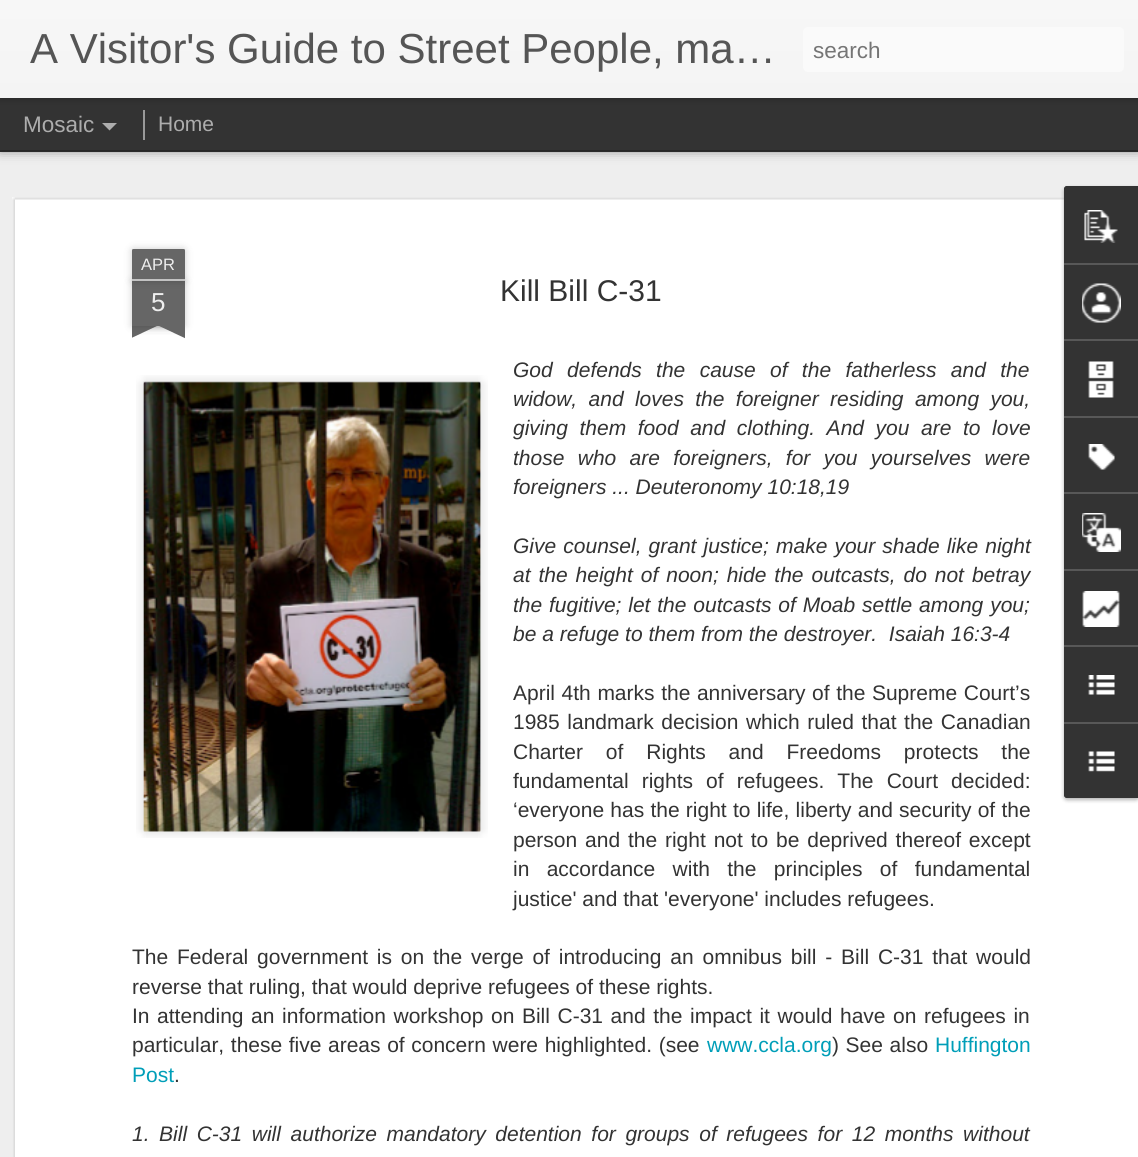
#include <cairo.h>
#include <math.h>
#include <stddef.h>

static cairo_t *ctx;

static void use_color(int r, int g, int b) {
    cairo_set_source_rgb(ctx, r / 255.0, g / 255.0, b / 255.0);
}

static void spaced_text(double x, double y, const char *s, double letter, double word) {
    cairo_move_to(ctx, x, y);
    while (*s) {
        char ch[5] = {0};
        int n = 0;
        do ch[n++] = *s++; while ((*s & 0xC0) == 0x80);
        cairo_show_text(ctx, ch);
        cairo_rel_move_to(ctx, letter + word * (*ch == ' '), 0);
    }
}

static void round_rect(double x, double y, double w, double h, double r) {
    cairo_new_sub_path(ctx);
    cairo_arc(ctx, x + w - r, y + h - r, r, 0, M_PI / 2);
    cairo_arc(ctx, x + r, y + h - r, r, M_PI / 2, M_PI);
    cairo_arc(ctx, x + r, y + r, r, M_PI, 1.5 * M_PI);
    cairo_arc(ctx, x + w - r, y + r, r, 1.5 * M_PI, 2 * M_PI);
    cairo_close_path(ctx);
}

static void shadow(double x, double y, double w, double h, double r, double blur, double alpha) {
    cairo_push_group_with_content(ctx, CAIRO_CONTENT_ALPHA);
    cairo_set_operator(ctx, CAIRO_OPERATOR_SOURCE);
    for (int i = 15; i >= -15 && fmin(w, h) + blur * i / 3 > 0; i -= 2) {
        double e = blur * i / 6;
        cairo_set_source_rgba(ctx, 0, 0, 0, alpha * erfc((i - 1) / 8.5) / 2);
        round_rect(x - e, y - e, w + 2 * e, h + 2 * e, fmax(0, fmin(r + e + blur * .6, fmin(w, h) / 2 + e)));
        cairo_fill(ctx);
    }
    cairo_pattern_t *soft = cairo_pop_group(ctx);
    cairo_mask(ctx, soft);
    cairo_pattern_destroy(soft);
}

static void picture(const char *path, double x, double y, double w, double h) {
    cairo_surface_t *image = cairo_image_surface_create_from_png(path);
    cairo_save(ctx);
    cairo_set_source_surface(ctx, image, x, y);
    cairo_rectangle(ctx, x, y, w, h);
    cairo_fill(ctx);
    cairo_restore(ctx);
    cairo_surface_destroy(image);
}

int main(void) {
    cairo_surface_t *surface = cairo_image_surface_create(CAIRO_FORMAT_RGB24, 1138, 1157);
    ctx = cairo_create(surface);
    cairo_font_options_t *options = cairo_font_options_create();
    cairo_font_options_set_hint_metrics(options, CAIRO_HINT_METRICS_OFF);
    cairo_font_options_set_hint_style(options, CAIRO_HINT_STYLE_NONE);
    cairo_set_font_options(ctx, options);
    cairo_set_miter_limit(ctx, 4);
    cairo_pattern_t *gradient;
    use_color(51, 51, 51);
    cairo_paint(ctx);
    use_color(238, 238, 238);
    cairo_rectangle(ctx, 0, 152, 1138, 1005);
    cairo_fill(ctx);
    use_color(0, 0, 0);
    shadow(0, 98, 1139, 52, 0, 6, 0.5);
    use_color(51, 51, 51);
    cairo_rectangle(ctx, 0, 98, 1138, 52);
    cairo_fill(ctx);
    use_color(153, 153, 153);
    cairo_rectangle(ctx, 143, 110, 2, 30);
    cairo_fill(ctx);
    use_color(0, 0, 0);
    shadow(0, 0, 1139, 98, 0, 4, 0.3);
    gradient = cairo_pattern_create_linear(0, 0, 0, 98);
    cairo_pattern_add_color_stop_rgba(gradient, 0, 0.969, 0.969, 0.969, 1);
    cairo_pattern_add_color_stop_rgba(gradient, 1, 0.957, 0.957, 0.957, 1);
    cairo_set_source(ctx, gradient);
    cairo_pattern_destroy(gradient);
    cairo_rectangle(ctx, 0, 0, 1138, 98);
    cairo_fill(ctx);
    cairo_select_font_face(ctx, "Liberation Sans", CAIRO_FONT_SLANT_NORMAL, CAIRO_FONT_WEIGHT_NORMAL);
    cairo_set_font_size(ctx, 42);
    use_color(85, 85, 85);
    cairo_move_to(ctx, 30, 63);
    cairo_show_text(ctx, "A Visitor's Guide to Street People, ma…");
    use_color(250, 250, 250);
    round_rect(803, 27, 321, 45, 5);
    cairo_fill(ctx);
    cairo_set_font_size(ctx, 22.5);
    use_color(117, 117, 117);
    cairo_move_to(ctx, 813, 58);
    cairo_show_text(ctx, "search");
    use_color(173, 173, 173);
    cairo_move_to(ctx, 23, 132);
    cairo_show_text(ctx, "Mosaic");
    cairo_new_path(ctx);
    cairo_move_to(ctx, 102, 123);
    cairo_line_to(ctx, 117, 123);
    cairo_line_to(ctx, 109.5, 130.5);
    cairo_close_path(ctx);
    cairo_fill(ctx);
    cairo_set_font_size(ctx, 21);
    cairo_move_to(ctx, 158, 131);
    cairo_show_text(ctx, "Home");
    use_color(255, 255, 255);
    cairo_rectangle(ctx, 12, 197, 1126, 960);
    cairo_fill(ctx);
    picture("img1.png", 12, 197, 1052, 960);
    use_color(0, 0, 0);
    shadow(132, 281, 53, 45, 0, 4, 0.2);
    use_color(102, 102, 102);
    cairo_rectangle(ctx, 132, 281, 53, 45);
    cairo_fill(ctx);
    use_color(0, 0, 0);
    shadow(132, 249, 53, 32, 1.5, 4, 0.2);
    use_color(102, 102, 102);
    cairo_new_path(ctx);
    cairo_move_to(ctx, 133.5, 249);
    cairo_line_to(ctx, 183.5, 249);
    cairo_curve_to(ctx, 184.5, 249, 185, 249.5, 185, 250.5);
    cairo_line_to(ctx, 185, 281);
    cairo_line_to(ctx, 132, 281);
    cairo_line_to(ctx, 132, 250.5);
    cairo_curve_to(ctx, 132, 249.5, 132.5, 249, 133.5, 249);
    cairo_close_path(ctx);
    cairo_fill(ctx);
    use_color(194, 194, 194);
    cairo_rectangle(ctx, 132, 279, 53, 2);
    cairo_fill(ctx);
    cairo_set_font_size(ctx, 16.5);
    use_color(238, 238, 238);
    cairo_move_to(ctx, 141, 270);
    cairo_show_text(ctx, "APR");
    cairo_set_font_size(ctx, 26);
    cairo_move_to(ctx, 151, 311);
    cairo_show_text(ctx, "5");
    cairo_save(ctx);
    cairo_rectangle(ctx, 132, 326, 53, 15);
    cairo_clip(ctx);
    use_color(0, 0, 0);
    shadow(119, 311, 75, 15, 0, 4, 0.2);
    cairo_restore(ctx);
    cairo_save(ctx);
    cairo_rectangle(ctx, 132, 326, 53, 15);
    cairo_clip(ctx);
    use_color(102, 102, 102);
    cairo_new_path(ctx);
    cairo_move_to(ctx, 119, 327);
    cairo_line_to(ctx, 187, 295);
    cairo_line_to(ctx, 193, 309);
    cairo_line_to(ctx, 125, 341);
    cairo_close_path(ctx);
    cairo_fill(ctx);
    cairo_restore(ctx);
    cairo_save(ctx);
    cairo_rectangle(ctx, 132, 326, 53, 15);
    cairo_clip(ctx);
    use_color(0, 0, 0);
    shadow(123, 311, 75, 15, 0, 4, 0.2);
    cairo_restore(ctx);
    cairo_save(ctx);
    cairo_rectangle(ctx, 132, 326, 53, 15);
    cairo_clip(ctx);
    use_color(102, 102, 102);
    cairo_new_path(ctx);
    cairo_move_to(ctx, 130, 295);
    cairo_line_to(ctx, 198, 327);
    cairo_line_to(ctx, 191, 341);
    cairo_line_to(ctx, 123, 309);
    cairo_close_path(ctx);
    cairo_fill(ctx);
    cairo_restore(ctx);
    cairo_set_font_size(ctx, 30);
    use_color(51, 51, 51);
    cairo_move_to(ctx, 500, 301);
    cairo_show_text(ctx, "Kill Bill C-31");
    cairo_select_font_face(ctx, "Liberation Sans", CAIRO_FONT_SLANT_ITALIC, CAIRO_FONT_WEIGHT_NORMAL);
    cairo_set_font_size(ctx, 21);
    spaced_text(513, 377, "God defends the cause of the fatherless and the", 0, 8.5);
    picture("img2.png", 136, 375, 352, 463);
    picture("img3.png", 143, 381, 338, 451);
    spaced_text(513, 406, "widow, and loves the foreigner residing among you,", 0, 5.5);
    spaced_text(513, 435, "giving them food and clothing. And you are to love", 0, 5.75);
    spaced_text(513, 465, "those who are foreigners, for you yourselves were", 0, 7.5);
    cairo_move_to(ctx, 513, 494);
    cairo_show_text(ctx, "foreigners ... Deuteronomy 10:18,19");
    spaced_text(513, 553, "Give counsel, grant justice; make your shade like night", 0, 1.25);
    spaced_text(513, 582, "at the height of noon; hide the outcasts, do not betray", 0, 2.1);
    spaced_text(513, 612, "the fugitive; let the outcasts of Moab settle among you;", 0, 1);
    cairo_move_to(ctx, 513, 641);
    cairo_show_text(ctx, "be a refuge to them from the destroyer.  Isaiah 16:3-4");
    cairo_select_font_face(ctx, "Liberation Sans", CAIRO_FONT_SLANT_NORMAL, CAIRO_FONT_WEIGHT_NORMAL);
    spaced_text(513, 700, "April 4th marks the anniversary of the Supreme Court’s", 0, 0.75);
    spaced_text(513, 729, "1985 landmark decision which ruled that the Canadian", 0, 1.75);
    spaced_text(513, 759, "Charter of Rights and Freedoms protects the", 0, 17);
    spaced_text(513, 788, "fundamental rights of refugees. The Court decided:", 0, 7.25);
    spaced_text(513, 817, "‘everyone has the right to life, liberty and security of the", 0, 0.4);
    spaced_text(513, 847, "person and the right not to be deprived thereof except", 0, 2);
    spaced_text(513, 876, "in accordance with the principles of fundamental", 0, 11.5);
    cairo_move_to(ctx, 513, 906);
    cairo_show_text(ctx, "justice' and that 'everyone' includes refugees.");
    spaced_text(132, 964, "The Federal government is on the verge of introducing an omnibus bill - Bill C-31 that would", 0, 3);
    cairo_move_to(ctx, 132, 994);
    cairo_show_text(ctx, "reverse that ruling, that would deprive refugees of these rights.");
    spaced_text(132, 1023, "In attending an information workshop on Bill C-31 and the impact it would have on refugees in", 0, 1.75);
    spaced_text(132, 1052, "particular, these five areas of concern were highlighted. (see", 0, 0.75);
    use_color(0, 158, 184);
    cairo_move_to(ctx, 707, 1052);
    cairo_show_text(ctx, "www.ccla.org");
    use_color(51, 51, 51);
    spaced_text(832, 1052, ") See also", 0, 0.75);
    use_color(0, 158, 184);
    cairo_move_to(ctx, 935, 1052);
    cairo_show_text(ctx, "Huffington");
    cairo_move_to(ctx, 132, 1082);
    cairo_show_text(ctx, "Post");
    use_color(51, 51, 51);
    cairo_move_to(ctx, 174, 1082);
    cairo_show_text(ctx, ".");
    cairo_select_font_face(ctx, "Liberation Sans", CAIRO_FONT_SLANT_ITALIC, CAIRO_FONT_WEIGHT_NORMAL);
    spaced_text(132, 1141, "1. Bill C-31 will authorize mandatory detention for groups of refugees for 12 months without", 0, 3.75);
    use_color(0, 0, 0);
    shadow(1064, 188, 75, 612, 3, 2, 0.3);
    use_color(51, 51, 51);
    cairo_new_path(ctx);
    cairo_move_to(ctx, 1067, 186);
    cairo_line_to(ctx, 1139, 186);
    cairo_line_to(ctx, 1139, 798);
    cairo_line_to(ctx, 1067, 798);
    cairo_curve_to(ctx, 1065.5, 798, 1064, 796.5, 1064, 795);
    cairo_line_to(ctx, 1064, 189);
    cairo_curve_to(ctx, 1064, 187.5, 1065.5, 186, 1067, 186);
    cairo_close_path(ctx);
    cairo_fill(ctx);
    cairo_new_path(ctx);
    cairo_move_to(ctx, 1067, 186);
    cairo_line_to(ctx, 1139, 186);
    cairo_line_to(ctx, 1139, 263);
    cairo_line_to(ctx, 1064, 263);
    cairo_line_to(ctx, 1064, 189);
    cairo_curve_to(ctx, 1064, 187.5, 1065.5, 186, 1067, 186);
    cairo_close_path(ctx);
    cairo_fill(ctx);
    picture("img4.png", 1084, 210, 34, 33);
    use_color(88, 88, 88);
    cairo_rectangle(ctx, 1064, 263, 74, 2);
    cairo_fill(ctx);
    picture("img5.png", 1082, 283, 39, 40);
    cairo_rectangle(ctx, 1064, 339, 74, 2);
    cairo_fill(ctx);
    picture("img6.png", 1088, 361, 26, 37);
    cairo_rectangle(ctx, 1064, 416, 74, 2);
    cairo_fill(ctx);
    picture("img7.png", 1088, 444, 27, 26);
    cairo_rectangle(ctx, 1064, 492, 74, 2);
    cairo_fill(ctx);
    picture("img8.png", 1082, 513, 39, 39);
    cairo_rectangle(ctx, 1064, 569, 74, 2);
    cairo_fill(ctx);
    picture("img9.png", 1082, 591, 38, 36);
    cairo_rectangle(ctx, 1064, 645, 74, 2);
    cairo_fill(ctx);
    picture("img10.png", 1088, 675, 27, 20);
    use_color(51, 51, 51);
    cairo_new_path(ctx);
    cairo_move_to(ctx, 1064, 722);
    cairo_line_to(ctx, 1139, 722);
    cairo_line_to(ctx, 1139, 798);
    cairo_line_to(ctx, 1067, 798);
    cairo_curve_to(ctx, 1065.5, 798, 1064, 796.5, 1064, 795);
    cairo_close_path(ctx);
    cairo_fill(ctx);
    use_color(88, 88, 88);
    cairo_rectangle(ctx, 1064, 722, 74, 2);
    cairo_fill(ctx);
    picture("img11.png", 1088, 751, 27, 21);
    cairo_surface_write_to_png(surface, "result.png");
    cairo_font_options_destroy(options);
    cairo_destroy(ctx);
    cairo_surface_destroy(surface);
    return 0;
}
